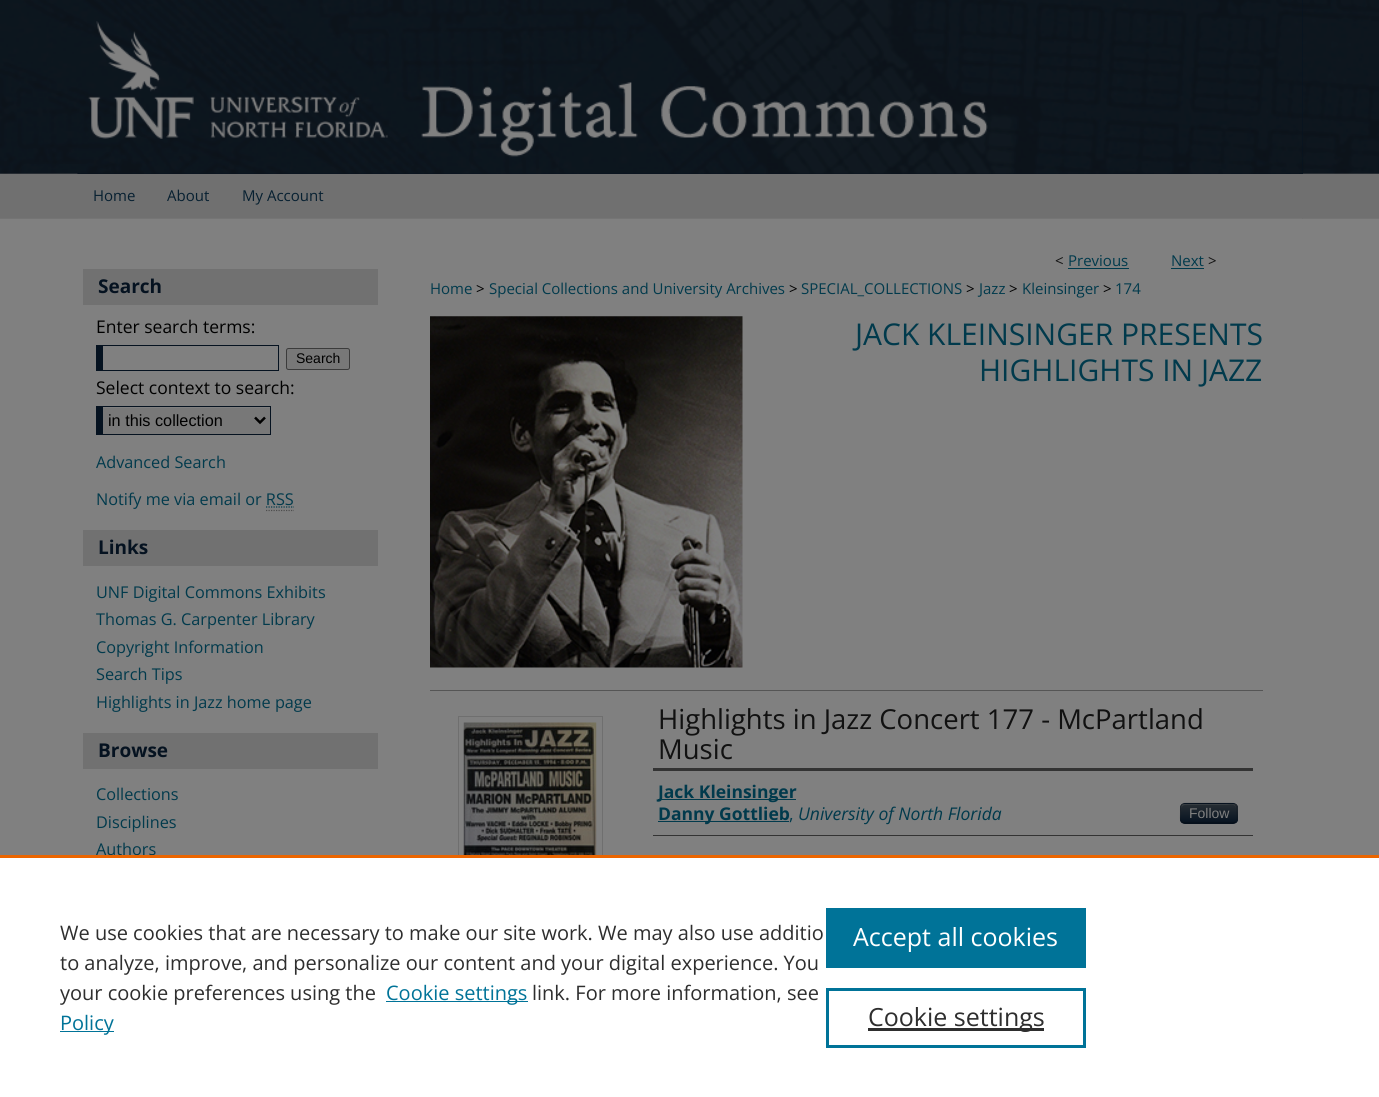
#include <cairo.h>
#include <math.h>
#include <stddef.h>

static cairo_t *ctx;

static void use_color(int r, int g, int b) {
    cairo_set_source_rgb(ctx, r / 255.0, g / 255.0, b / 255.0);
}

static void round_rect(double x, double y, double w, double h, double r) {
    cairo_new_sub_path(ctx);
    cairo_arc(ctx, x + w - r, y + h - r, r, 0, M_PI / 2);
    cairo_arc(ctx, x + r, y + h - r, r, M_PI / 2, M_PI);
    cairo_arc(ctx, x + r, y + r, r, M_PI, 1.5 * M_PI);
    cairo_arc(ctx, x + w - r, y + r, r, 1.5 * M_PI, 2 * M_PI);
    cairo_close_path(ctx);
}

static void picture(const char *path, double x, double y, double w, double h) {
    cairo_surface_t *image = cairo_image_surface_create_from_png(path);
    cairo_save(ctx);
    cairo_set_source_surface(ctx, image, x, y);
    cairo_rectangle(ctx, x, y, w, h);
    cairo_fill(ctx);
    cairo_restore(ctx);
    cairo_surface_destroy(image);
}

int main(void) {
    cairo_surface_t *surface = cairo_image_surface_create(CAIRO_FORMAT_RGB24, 1379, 1097);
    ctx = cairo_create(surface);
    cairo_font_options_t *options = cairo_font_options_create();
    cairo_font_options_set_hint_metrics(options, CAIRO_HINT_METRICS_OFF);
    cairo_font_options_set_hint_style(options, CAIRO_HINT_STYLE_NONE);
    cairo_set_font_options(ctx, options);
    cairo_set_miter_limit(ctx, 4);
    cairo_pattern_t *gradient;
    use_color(128, 128, 128);
    cairo_paint(ctx);
    picture("img1.png", 0, 0, 1379, 219);
    use_color(5, 18, 32);
    cairo_rectangle(ctx, 78, 0, 1225, 174);
    cairo_fill(ctx);
    picture("img2.png", 77, 0, 1226, 174);
    use_color(22, 29, 38);
    cairo_rectangle(ctx, 77, 173, 1, 1);
    cairo_fill(ctx);
    use_color(113, 113, 113);
    cairo_rectangle(ctx, 78, 218, 1225, 1);
    cairo_fill(ctx);
    cairo_select_font_face(ctx, "Open Sans", CAIRO_FONT_SLANT_NORMAL, CAIRO_FONT_WEIGHT_NORMAL);
    cairo_set_font_size(ctx, 15);
    use_color(7, 32, 49);
    cairo_move_to(ctx, 93, 201);
    cairo_show_text(ctx, "Home");
    cairo_move_to(ctx, 167, 201);
    cairo_show_text(ctx, "About");
    cairo_move_to(ctx, 242, 201);
    cairo_show_text(ctx, "My Account");
    use_color(117, 117, 117);
    cairo_rectangle(ctx, 78, 218, 1224, 1);
    cairo_fill(ctx);
    use_color(113, 113, 113);
    cairo_rectangle(ctx, 83, 269, 295, 36);
    cairo_fill(ctx);
    cairo_select_font_face(ctx, "Open Sans", CAIRO_FONT_SLANT_NORMAL, CAIRO_FONT_WEIGHT_BOLD);
    cairo_set_font_size(ctx, 19);
    use_color(5, 18, 32);
    cairo_move_to(ctx, 98, 293);
    cairo_show_text(ctx, "Search");
    cairo_select_font_face(ctx, "Open Sans", CAIRO_FONT_SLANT_NORMAL, CAIRO_FONT_WEIGHT_NORMAL);
    cairo_set_font_size(ctx, 17.5);
    use_color(0, 0, 0);
    cairo_move_to(ctx, 96, 333);
    cairo_show_text(ctx, "Enter search terms:");
    use_color(5, 18, 32);
    cairo_rectangle(ctx, 96, 345, 183, 1);
    cairo_fill(ctx);
    cairo_rectangle(ctx, 278, 345, 1, 26);
    cairo_fill(ctx);
    cairo_rectangle(ctx, 96, 370, 183, 1);
    cairo_fill(ctx);
    cairo_rectangle(ctx, 96, 345, 7, 26);
    cairo_fill(ctx);
    use_color(120, 120, 120);
    round_rect(286.5, 348.5, 63, 21, 2);
    cairo_fill_preserve(ctx);
    use_color(59, 59, 59);
    cairo_set_line_width(ctx, 1);
    cairo_stroke(ctx);
    cairo_select_font_face(ctx, "Liberation Sans", CAIRO_FONT_SLANT_NORMAL, CAIRO_FONT_WEIGHT_NORMAL);
    cairo_set_font_size(ctx, 14);
    use_color(0, 0, 0);
    cairo_move_to(ctx, 296, 363);
    cairo_show_text(ctx, "Search");
    cairo_select_font_face(ctx, "Open Sans", CAIRO_FONT_SLANT_NORMAL, CAIRO_FONT_WEIGHT_NORMAL);
    cairo_set_font_size(ctx, 17.5);
    cairo_move_to(ctx, 96, 394);
    cairo_show_text(ctx, "Select context to search:");
    use_color(120, 120, 120);
    cairo_rectangle(ctx, 103, 408, 167, 26);
    cairo_fill(ctx);
    use_color(5, 18, 32);
    cairo_rectangle(ctx, 96, 406, 175, 1);
    cairo_fill(ctx);
    cairo_rectangle(ctx, 270, 406, 1, 29);
    cairo_fill(ctx);
    cairo_rectangle(ctx, 96, 434, 175, 1);
    cairo_fill(ctx);
    cairo_rectangle(ctx, 96, 406, 7, 29);
    cairo_fill(ctx);
    cairo_new_path(ctx);
    cairo_move_to(ctx, 255, 417.5);
    cairo_line_to(ctx, 260, 422.5);
    cairo_line_to(ctx, 265, 417.5);
    use_color(0, 0, 0);
    cairo_set_line_width(ctx, 2.5);
    cairo_stroke(ctx);
    cairo_select_font_face(ctx, "Liberation Sans", CAIRO_FONT_SLANT_NORMAL, CAIRO_FONT_WEIGHT_NORMAL);
    cairo_set_font_size(ctx, 16.25);
    cairo_move_to(ctx, 108, 426);
    cairo_show_text(ctx, "in this collection");
    cairo_select_font_face(ctx, "Open Sans", CAIRO_FONT_SLANT_NORMAL, CAIRO_FONT_WEIGHT_NORMAL);
    use_color(1, 58, 76);
    cairo_move_to(ctx, 96, 468);
    cairo_show_text(ctx, "Advanced Search");
    cairo_move_to(ctx, 96, 505);
    cairo_show_text(ctx, "Notify me via email or RSS");
    cairo_new_path(ctx);
    cairo_move_to(ctx, 266, 507);
    cairo_line_to(ctx, 294, 507);
    cairo_set_line_width(ctx, 1.2);
    cairo_set_dash(ctx, (double[]){1.25, 1.25}, 2, 0);
    cairo_stroke(ctx);
    cairo_new_path(ctx);
    cairo_move_to(ctx, 266, 510.5);
    cairo_line_to(ctx, 294, 510.5);
    use_color(77, 77, 77);
    cairo_stroke(ctx);
    use_color(113, 113, 113);
    cairo_rectangle(ctx, 83, 530, 295, 36);
    cairo_fill(ctx);
    cairo_select_font_face(ctx, "Open Sans", CAIRO_FONT_SLANT_NORMAL, CAIRO_FONT_WEIGHT_BOLD);
    cairo_set_font_size(ctx, 19);
    use_color(5, 18, 32);
    cairo_move_to(ctx, 98, 554);
    cairo_show_text(ctx, "Links");
    cairo_select_font_face(ctx, "Open Sans", CAIRO_FONT_SLANT_NORMAL, CAIRO_FONT_WEIGHT_NORMAL);
    cairo_set_font_size(ctx, 16.25);
    use_color(1, 58, 76);
    cairo_move_to(ctx, 96, 598);
    cairo_show_text(ctx, "UNF Digital Commons Exhibits");
    cairo_move_to(ctx, 96, 625);
    cairo_show_text(ctx, "Thomas G. Carpenter Library");
    cairo_move_to(ctx, 96, 653);
    cairo_show_text(ctx, "Copyright Information");
    cairo_move_to(ctx, 96, 680);
    cairo_show_text(ctx, "Search Tips");
    cairo_move_to(ctx, 96, 708);
    cairo_show_text(ctx, "Highlights in Jazz home page");
    use_color(113, 113, 113);
    cairo_rectangle(ctx, 83, 733, 295, 36);
    cairo_fill(ctx);
    cairo_select_font_face(ctx, "Open Sans", CAIRO_FONT_SLANT_NORMAL, CAIRO_FONT_WEIGHT_BOLD);
    cairo_set_font_size(ctx, 19);
    use_color(5, 18, 32);
    cairo_move_to(ctx, 98, 757);
    cairo_show_text(ctx, "Browse");
    cairo_select_font_face(ctx, "Open Sans", CAIRO_FONT_SLANT_NORMAL, CAIRO_FONT_WEIGHT_NORMAL);
    cairo_set_font_size(ctx, 16.25);
    use_color(1, 58, 76);
    cairo_move_to(ctx, 96, 800);
    cairo_show_text(ctx, "Collections");
    cairo_move_to(ctx, 96, 828);
    cairo_show_text(ctx, "Disciplines");
    cairo_move_to(ctx, 96, 855);
    cairo_show_text(ctx, "Authors");
    cairo_set_font_size(ctx, 15);
    use_color(17, 17, 17);
    cairo_move_to(ctx, 1055, 266);
    cairo_show_text(ctx, "<");
    use_color(1, 58, 76);
    cairo_move_to(ctx, 1068, 266);
    cairo_show_text(ctx, "Previous");
    cairo_rectangle(ctx, 1068, 268, 61, 1);
    cairo_fill(ctx);
    cairo_move_to(ctx, 1171, 266);
    cairo_show_text(ctx, "Next");
    cairo_rectangle(ctx, 1171, 268, 33, 1);
    cairo_fill(ctx);
    use_color(17, 17, 17);
    cairo_move_to(ctx, 1208, 266);
    cairo_show_text(ctx, ">");
    use_color(1, 58, 76);
    cairo_move_to(ctx, 430, 294);
    cairo_show_text(ctx, "Home");
    use_color(0, 0, 0);
    cairo_move_to(ctx, 476, 294);
    cairo_show_text(ctx, ">");
    use_color(1, 58, 76);
    cairo_move_to(ctx, 489, 294);
    cairo_show_text(ctx, "Special Collections and University Archives");
    use_color(0, 0, 0);
    cairo_move_to(ctx, 789, 294);
    cairo_show_text(ctx, ">");
    use_color(1, 58, 76);
    cairo_move_to(ctx, 801, 294);
    cairo_show_text(ctx, "SPECIAL_COLLECTIONS");
    use_color(0, 0, 0);
    cairo_move_to(ctx, 966, 294);
    cairo_show_text(ctx, ">");
    use_color(1, 58, 76);
    cairo_move_to(ctx, 979, 294);
    cairo_show_text(ctx, "Jazz");
    use_color(0, 0, 0);
    cairo_move_to(ctx, 1009, 294);
    cairo_show_text(ctx, ">");
    use_color(1, 58, 76);
    cairo_move_to(ctx, 1022, 294);
    cairo_show_text(ctx, "Kleinsinger");
    use_color(0, 0, 0);
    cairo_move_to(ctx, 1103, 294);
    cairo_show_text(ctx, ">");
    use_color(1, 58, 76);
    cairo_move_to(ctx, 1115, 294);
    cairo_show_text(ctx, "174");
    picture("img3.png", 430, 316, 313, 352);
    cairo_set_font_size(ctx, 30);
    cairo_move_to(ctx, 855, 345);
    cairo_show_text(ctx, "JACK KLEINSINGER PRESENTS");
    cairo_move_to(ctx, 979, 381);
    cairo_show_text(ctx, "HIGHLIGHTS IN JAZZ");
    cairo_rectangle(ctx, 458.5, 716.5, 144, 199);
    use_color(111, 111, 111);
    cairo_set_line_width(ctx, 1);
    cairo_set_dash(ctx, NULL, 0, 0);
    cairo_stroke(ctx);
    picture("img4.png", 463, 722, 134, 133);
    use_color(85, 85, 85);
    cairo_rectangle(ctx, 430, 690, 833, 1);
    cairo_fill(ctx);
    cairo_set_font_size(ctx, 27.5);
    use_color(17, 17, 17);
    cairo_move_to(ctx, 658, 729);
    cairo_show_text(ctx, "Highlights in Jazz Concert 177 - McPartland");
    cairo_move_to(ctx, 658, 759);
    cairo_show_text(ctx, "Music");
    use_color(51, 51, 51);
    cairo_rectangle(ctx, 653, 768, 600, 3);
    cairo_fill(ctx);
    cairo_rectangle(ctx, 653, 835, 600, 1);
    cairo_fill(ctx);
    use_color(1, 58, 76);
    cairo_rectangle(ctx, 658, 799, 138, 1);
    cairo_fill(ctx);
    cairo_select_font_face(ctx, "Open Sans", CAIRO_FONT_SLANT_NORMAL, CAIRO_FONT_WEIGHT_BOLD);
    cairo_set_font_size(ctx, 17.5);
    cairo_move_to(ctx, 658, 798);
    cairo_show_text(ctx, "Jack Kleinsinger");
    cairo_rectangle(ctx, 658, 821, 131, 1);
    cairo_fill(ctx);
    cairo_move_to(ctx, 658, 820);
    cairo_show_text(ctx, "Danny Gottlieb");
    cairo_select_font_face(ctx, "Open Sans", CAIRO_FONT_SLANT_NORMAL, CAIRO_FONT_WEIGHT_NORMAL);
    cairo_move_to(ctx, 789, 820);
    cairo_show_text(ctx, ",");
    cairo_select_font_face(ctx, "Open Sans", CAIRO_FONT_SLANT_ITALIC, CAIRO_FONT_WEIGHT_NORMAL);
    cairo_move_to(ctx, 798, 820);
    cairo_show_text(ctx, "University of North Florida");
    use_color(6, 18, 32);
    round_rect(1180, 803, 58, 21, 5);
    cairo_fill(ctx);
    cairo_save(ctx);
    round_rect(1180, 803, 58, 21, 5);
    cairo_clip(ctx);
    gradient = cairo_pattern_create_linear(1209, 804, 1209, 823);
    cairo_pattern_add_color_stop_rgba(gradient, 0, 0.153, 0.18, 0.204, 1);
    cairo_pattern_add_color_stop_rgba(gradient, 1, 0.024, 0.071, 0.125, 1);
    cairo_set_source(ctx, gradient);
    cairo_pattern_destroy(gradient);
    cairo_rectangle(ctx, 1180, 804, 58, 19);
    cairo_fill(ctx);
    cairo_restore(ctx);
    cairo_set_source_rgba(ctx, 0.502, 0.502, 0.502, 0.2);
    cairo_new_path(ctx);
    cairo_move_to(ctx, 1185, 805);
    cairo_line_to(ctx, 1227, 805);
    cairo_curve_to(ctx, 1233, 804, 1236, 804, 1236, 811);
    cairo_line_to(ctx, 1236, 820);
    cairo_line_to(ctx, 1236, 812);
    cairo_curve_to(ctx, 1236, 802, 1234, 804, 1224, 804);
    cairo_line_to(ctx, 1193, 804);
    cairo_curve_to(ctx, 1183, 804, 1181, 802, 1181, 812);
    cairo_line_to(ctx, 1181, 821);
    cairo_curve_to(ctx, 1181, 817, 1179, 805, 1185, 805);
    cairo_close_path(ctx);
    cairo_fill(ctx);
    cairo_new_path(ctx);
    cairo_move_to(ctx, 1235.5, 822);
    cairo_curve_to(ctx, 1235, 822.5, 1233.5, 823, 1232.5, 823);
    cairo_line_to(ctx, 1185, 823);
    cairo_curve_to(ctx, 1184, 823, 1182.5, 822.5, 1182, 822);
    cairo_set_source_rgba(ctx, 0, 0, 0, 0.25);
    cairo_set_line_width(ctx, 1.2);
    cairo_stroke(ctx);
    cairo_new_path(ctx);
    cairo_move_to(ctx, 1182, 822);
    cairo_curve_to(ctx, 1179.5, 819.5, 1180.5, 816, 1180.5, 813);
    cairo_curve_to(ctx, 1180.5, 802, 1181.5, 803, 1193, 803);
    cairo_line_to(ctx, 1224.5, 803);
    cairo_curve_to(ctx, 1236, 803, 1237, 802, 1237, 813);
    cairo_curve_to(ctx, 1237, 816, 1238, 819.5, 1235.5, 822);
    cairo_set_source_rgba(ctx, 0, 0, 0, 0.1);
    cairo_stroke(ctx);
    cairo_select_font_face(ctx, "Liberation Sans", CAIRO_FONT_SLANT_NORMAL, CAIRO_FONT_WEIGHT_NORMAL);
    cairo_set_font_size(ctx, 14);
    use_color(128, 128, 128);
    cairo_move_to(ctx, 1189, 818);
    cairo_show_text(ctx, "Follow");
    use_color(255, 255, 255);
    cairo_rectangle(ctx, 0, 858, 1379, 239);
    cairo_fill(ctx);
    use_color(235, 101, 0);
    cairo_rectangle(ctx, 0, 855, 1379, 3);
    cairo_fill(ctx);
    cairo_select_font_face(ctx, "Open Sans", CAIRO_FONT_SLANT_NORMAL, CAIRO_FONT_WEIGHT_NORMAL);
    cairo_set_font_size(ctx, 20);
    use_color(46, 46, 46);
    cairo_move_to(ctx, 60, 940);
    cairo_show_text(ctx, "We use cookies that are necessary to make our site work. We may also use additio");
    cairo_move_to(ctx, 60, 970);
    cairo_show_text(ctx, "to analyze, improve, and personalize our content and your digital experience. You");
    cairo_move_to(ctx, 60, 1000);
    cairo_show_text(ctx, "your cookie preferences using the");
    use_color(0, 115, 152);
    cairo_rectangle(ctx, 386, 1001, 142, 1);
    cairo_fill(ctx);
    cairo_move_to(ctx, 386, 1000);
    cairo_show_text(ctx, "Cookie settings");
    use_color(46, 46, 46);
    cairo_move_to(ctx, 532, 1000);
    cairo_show_text(ctx, "link. For more information, see");
    use_color(0, 115, 152);
    cairo_rectangle(ctx, 60, 1031, 54, 1);
    cairo_fill(ctx);
    cairo_move_to(ctx, 60, 1030);
    cairo_show_text(ctx, "Policy");
    cairo_rectangle(ctx, 826, 908, 260, 60);
    cairo_fill(ctx);
    cairo_set_font_size(ctx, 25);
    use_color(255, 255, 255);
    cairo_move_to(ctx, 853, 946);
    cairo_show_text(ctx, "Accept all cookies");
    cairo_rectangle(ctx, 827.5, 989.5, 257, 57);
    use_color(0, 115, 152);
    cairo_set_line_width(ctx, 3);
    cairo_stroke(ctx);
    use_color(46, 46, 46);
    cairo_rectangle(ctx, 868, 1028, 176, 3);
    cairo_fill(ctx);
    cairo_move_to(ctx, 868, 1026);
    cairo_show_text(ctx, "Cookie settings");
    cairo_surface_write_to_png(surface, "result.png");
    cairo_font_options_destroy(options);
    cairo_destroy(ctx);
    cairo_surface_destroy(surface);
    return 0;
}
